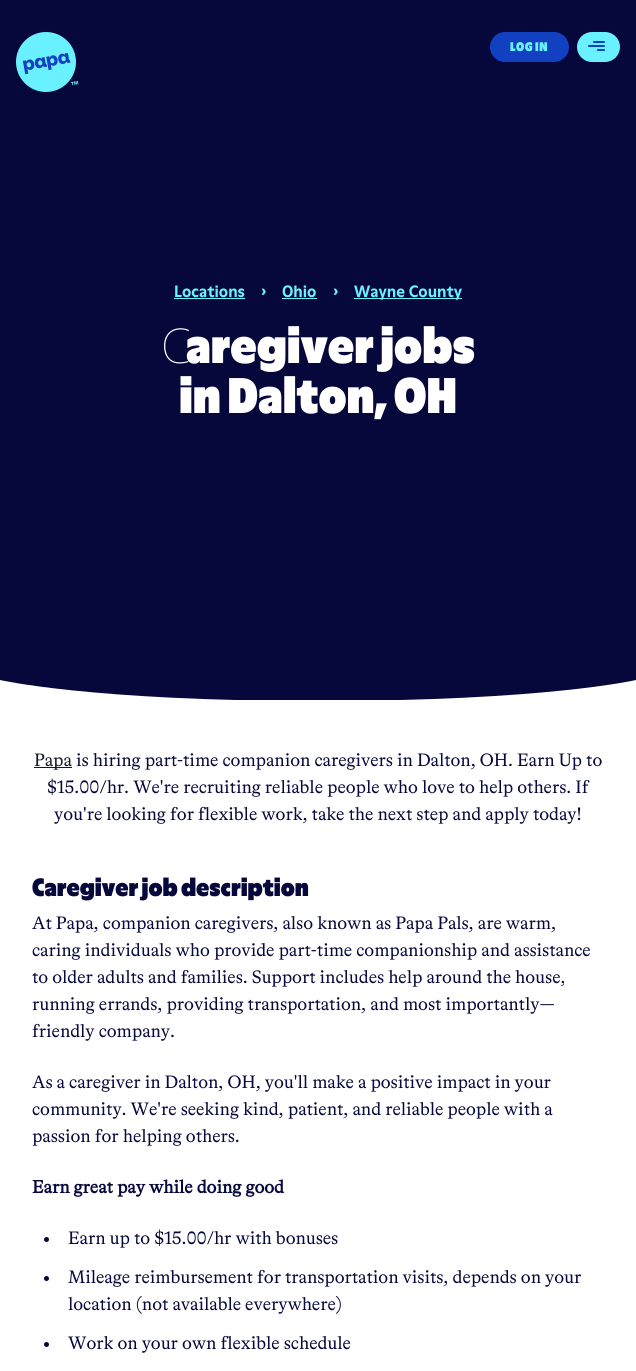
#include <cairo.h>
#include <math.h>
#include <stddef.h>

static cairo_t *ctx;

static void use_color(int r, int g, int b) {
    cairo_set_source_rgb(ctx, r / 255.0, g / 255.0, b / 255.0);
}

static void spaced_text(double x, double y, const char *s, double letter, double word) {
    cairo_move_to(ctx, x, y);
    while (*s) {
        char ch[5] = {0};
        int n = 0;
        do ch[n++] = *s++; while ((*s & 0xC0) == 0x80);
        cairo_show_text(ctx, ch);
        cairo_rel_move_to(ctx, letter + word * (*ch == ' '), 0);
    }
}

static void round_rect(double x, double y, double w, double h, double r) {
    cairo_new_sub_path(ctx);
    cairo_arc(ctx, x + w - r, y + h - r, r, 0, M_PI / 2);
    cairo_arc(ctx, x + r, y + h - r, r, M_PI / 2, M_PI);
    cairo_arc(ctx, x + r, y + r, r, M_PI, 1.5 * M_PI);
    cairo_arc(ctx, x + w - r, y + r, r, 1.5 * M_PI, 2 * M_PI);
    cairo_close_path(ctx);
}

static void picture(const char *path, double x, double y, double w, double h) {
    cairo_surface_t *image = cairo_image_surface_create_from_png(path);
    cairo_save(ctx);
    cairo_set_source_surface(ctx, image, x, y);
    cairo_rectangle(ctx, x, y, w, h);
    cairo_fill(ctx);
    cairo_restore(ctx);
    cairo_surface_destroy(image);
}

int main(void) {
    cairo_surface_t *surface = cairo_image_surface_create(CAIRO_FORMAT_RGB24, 636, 1371);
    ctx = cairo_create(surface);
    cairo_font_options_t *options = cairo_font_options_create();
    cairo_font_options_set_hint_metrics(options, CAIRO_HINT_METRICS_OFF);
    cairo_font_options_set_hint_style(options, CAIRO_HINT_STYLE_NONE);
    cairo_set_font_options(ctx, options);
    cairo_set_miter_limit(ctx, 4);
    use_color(255, 255, 255);
    cairo_paint(ctx);
    use_color(6, 8, 60);
    cairo_rectangle(ctx, 0, 0, 636, 700);
    cairo_fill(ctx);
    picture("img1.png", 16, 32, 63, 60);
    use_color(17, 64, 192);
    round_rect(490, 32, 79, 30, 15);
    cairo_fill(ctx);
    cairo_select_font_face(ctx, "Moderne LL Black", CAIRO_FONT_SLANT_NORMAL, CAIRO_FONT_WEIGHT_NORMAL);
    cairo_set_font_size(ctx, 12);
    use_color(105, 241, 255);
    spaced_text(510, 51, "LOG IN", 0.5, 0);
    round_rect(577, 32, 43, 30, 15);
    cairo_fill(ctx);
    use_color(17, 64, 192);
    round_rect(593, 41, 12, 2, 1);
    cairo_fill(ctx);
    round_rect(588, 45, 17, 2, 1);
    cairo_fill(ctx);
    round_rect(597, 49, 8, 2, 1);
    cairo_fill(ctx);
    cairo_select_font_face(ctx, "Moderne LL", CAIRO_FONT_SLANT_NORMAL, CAIRO_FONT_WEIGHT_BOLD);
    cairo_set_font_size(ctx, 16);
    use_color(105, 241, 255);
    cairo_move_to(ctx, 174, 297);
    cairo_show_text(ctx, "Locations");
    cairo_rectangle(ctx, 174, 298, 71, 1);
    cairo_fill(ctx);
    cairo_move_to(ctx, 261, 297);
    cairo_show_text(ctx, "›");
    cairo_move_to(ctx, 282, 297);
    cairo_show_text(ctx, "Ohio");
    cairo_rectangle(ctx, 282, 298, 35, 1);
    cairo_fill(ctx);
    cairo_move_to(ctx, 333, 297);
    cairo_show_text(ctx, "›");
    cairo_rectangle(ctx, 354, 298, 108, 1);
    cairo_fill(ctx);
    cairo_move_to(ctx, 354, 297);
    cairo_show_text(ctx, "Wayne County");
    cairo_select_font_face(ctx, "Noto Sans Thin", CAIRO_FONT_SLANT_NORMAL, CAIRO_FONT_WEIGHT_NORMAL);
    cairo_set_font_size(ctx, 48);
    use_color(255, 255, 255);
    cairo_move_to(ctx, 161, 363);
    cairo_show_text(ctx, "C");
    cairo_select_font_face(ctx, "Moderne LL Black", CAIRO_FONT_SLANT_NORMAL, CAIRO_FONT_WEIGHT_NORMAL);
    cairo_move_to(ctx, 186, 363);
    cairo_show_text(ctx, "aregiver jobs");
    cairo_move_to(ctx, 179, 413);
    cairo_show_text(ctx, "in Dalton, OH");
    cairo_new_path(ctx);
    cairo_move_to(ctx, 0, 680);
    cairo_curve_to(ctx, 0, 680, 90, 701, 318, 701);
    cairo_curve_to(ctx, 546, 701, 636, 680, 636, 680);
    cairo_line_to(ctx, 636, 701);
    cairo_line_to(ctx, 0, 701);
    cairo_close_path(ctx);
    cairo_fill(ctx);
    use_color(17, 24, 39);
    cairo_rectangle(ctx, 34, 767, 38, 1);
    cairo_fill(ctx);
    cairo_select_font_face(ctx, "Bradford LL", CAIRO_FONT_SLANT_NORMAL, CAIRO_FONT_WEIGHT_NORMAL);
    cairo_set_font_size(ctx, 18);
    cairo_move_to(ctx, 34, 766);
    cairo_show_text(ctx, "Papa");
    use_color(6, 8, 60);
    cairo_move_to(ctx, 76, 766);
    cairo_show_text(ctx, "is hiring part-time companion caregivers in Dalton, OH. Earn Up to");
    cairo_move_to(ctx, 47, 793);
    cairo_show_text(ctx, "$15.00/hr. We're recruiting reliable people who love to help others. If");
    cairo_move_to(ctx, 54, 820);
    cairo_show_text(ctx, "you're looking for flexible work, take the next step and apply today!");
    cairo_select_font_face(ctx, "Moderne LL Black", CAIRO_FONT_SLANT_NORMAL, CAIRO_FONT_WEIGHT_NORMAL);
    cairo_set_font_size(ctx, 24);
    cairo_move_to(ctx, 32, 896);
    cairo_show_text(ctx, "Caregiver job description");
    cairo_select_font_face(ctx, "Bradford LL", CAIRO_FONT_SLANT_NORMAL, CAIRO_FONT_WEIGHT_NORMAL);
    cairo_set_font_size(ctx, 18);
    cairo_move_to(ctx, 32, 929);
    cairo_show_text(ctx, "At Papa, companion caregivers, also known as Papa Pals, are warm,");
    cairo_move_to(ctx, 32, 956);
    cairo_show_text(ctx, "caring individuals who provide part-time companionship and assistance");
    cairo_move_to(ctx, 32, 983);
    cairo_show_text(ctx, "to older adults and families. Support includes help around the house,");
    cairo_move_to(ctx, 32, 1010);
    cairo_show_text(ctx, "running errands, providing transportation, and most importantly—");
    cairo_move_to(ctx, 32, 1037);
    cairo_show_text(ctx, "friendly company.");
    cairo_move_to(ctx, 32, 1088);
    cairo_show_text(ctx, "As a caregiver in Dalton, OH, you'll make a positive impact in your");
    cairo_move_to(ctx, 32, 1115);
    cairo_show_text(ctx, "community. We're seeking kind, patient, and reliable people with a");
    cairo_move_to(ctx, 32, 1142);
    cairo_show_text(ctx, "passion for helping others.");
    cairo_select_font_face(ctx, "Bradford LL", CAIRO_FONT_SLANT_NORMAL, CAIRO_FONT_WEIGHT_BOLD);
    cairo_move_to(ctx, 32, 1193);
    cairo_show_text(ctx, "Earn great pay while doing good");
    cairo_new_path(ctx);
    cairo_arc(ctx, 46.5, 1239.5, 2.5, 0, 2 * M_PI);
    cairo_fill(ctx);
    cairo_select_font_face(ctx, "Bradford LL", CAIRO_FONT_SLANT_NORMAL, CAIRO_FONT_WEIGHT_NORMAL);
    cairo_move_to(ctx, 68, 1244);
    cairo_show_text(ctx, "Earn up to $15.00/hr with bonuses");
    cairo_new_path(ctx);
    cairo_arc(ctx, 46.5, 1278.5, 2.5, 0, 2 * M_PI);
    cairo_fill(ctx);
    cairo_move_to(ctx, 68, 1283);
    cairo_show_text(ctx, "Mileage reimbursement for transportation visits, depends on your");
    cairo_move_to(ctx, 68, 1310);
    cairo_show_text(ctx, "location (not available everywhere)");
    cairo_new_path(ctx);
    cairo_arc(ctx, 46.5, 1344.5, 2.5, 0, 2 * M_PI);
    cairo_fill(ctx);
    cairo_move_to(ctx, 68, 1349);
    cairo_show_text(ctx, "Work on your own flexible schedule");
    cairo_surface_write_to_png(surface, "result.png");
    cairo_font_options_destroy(options);
    cairo_destroy(ctx);
    cairo_surface_destroy(surface);
    return 0;
}
